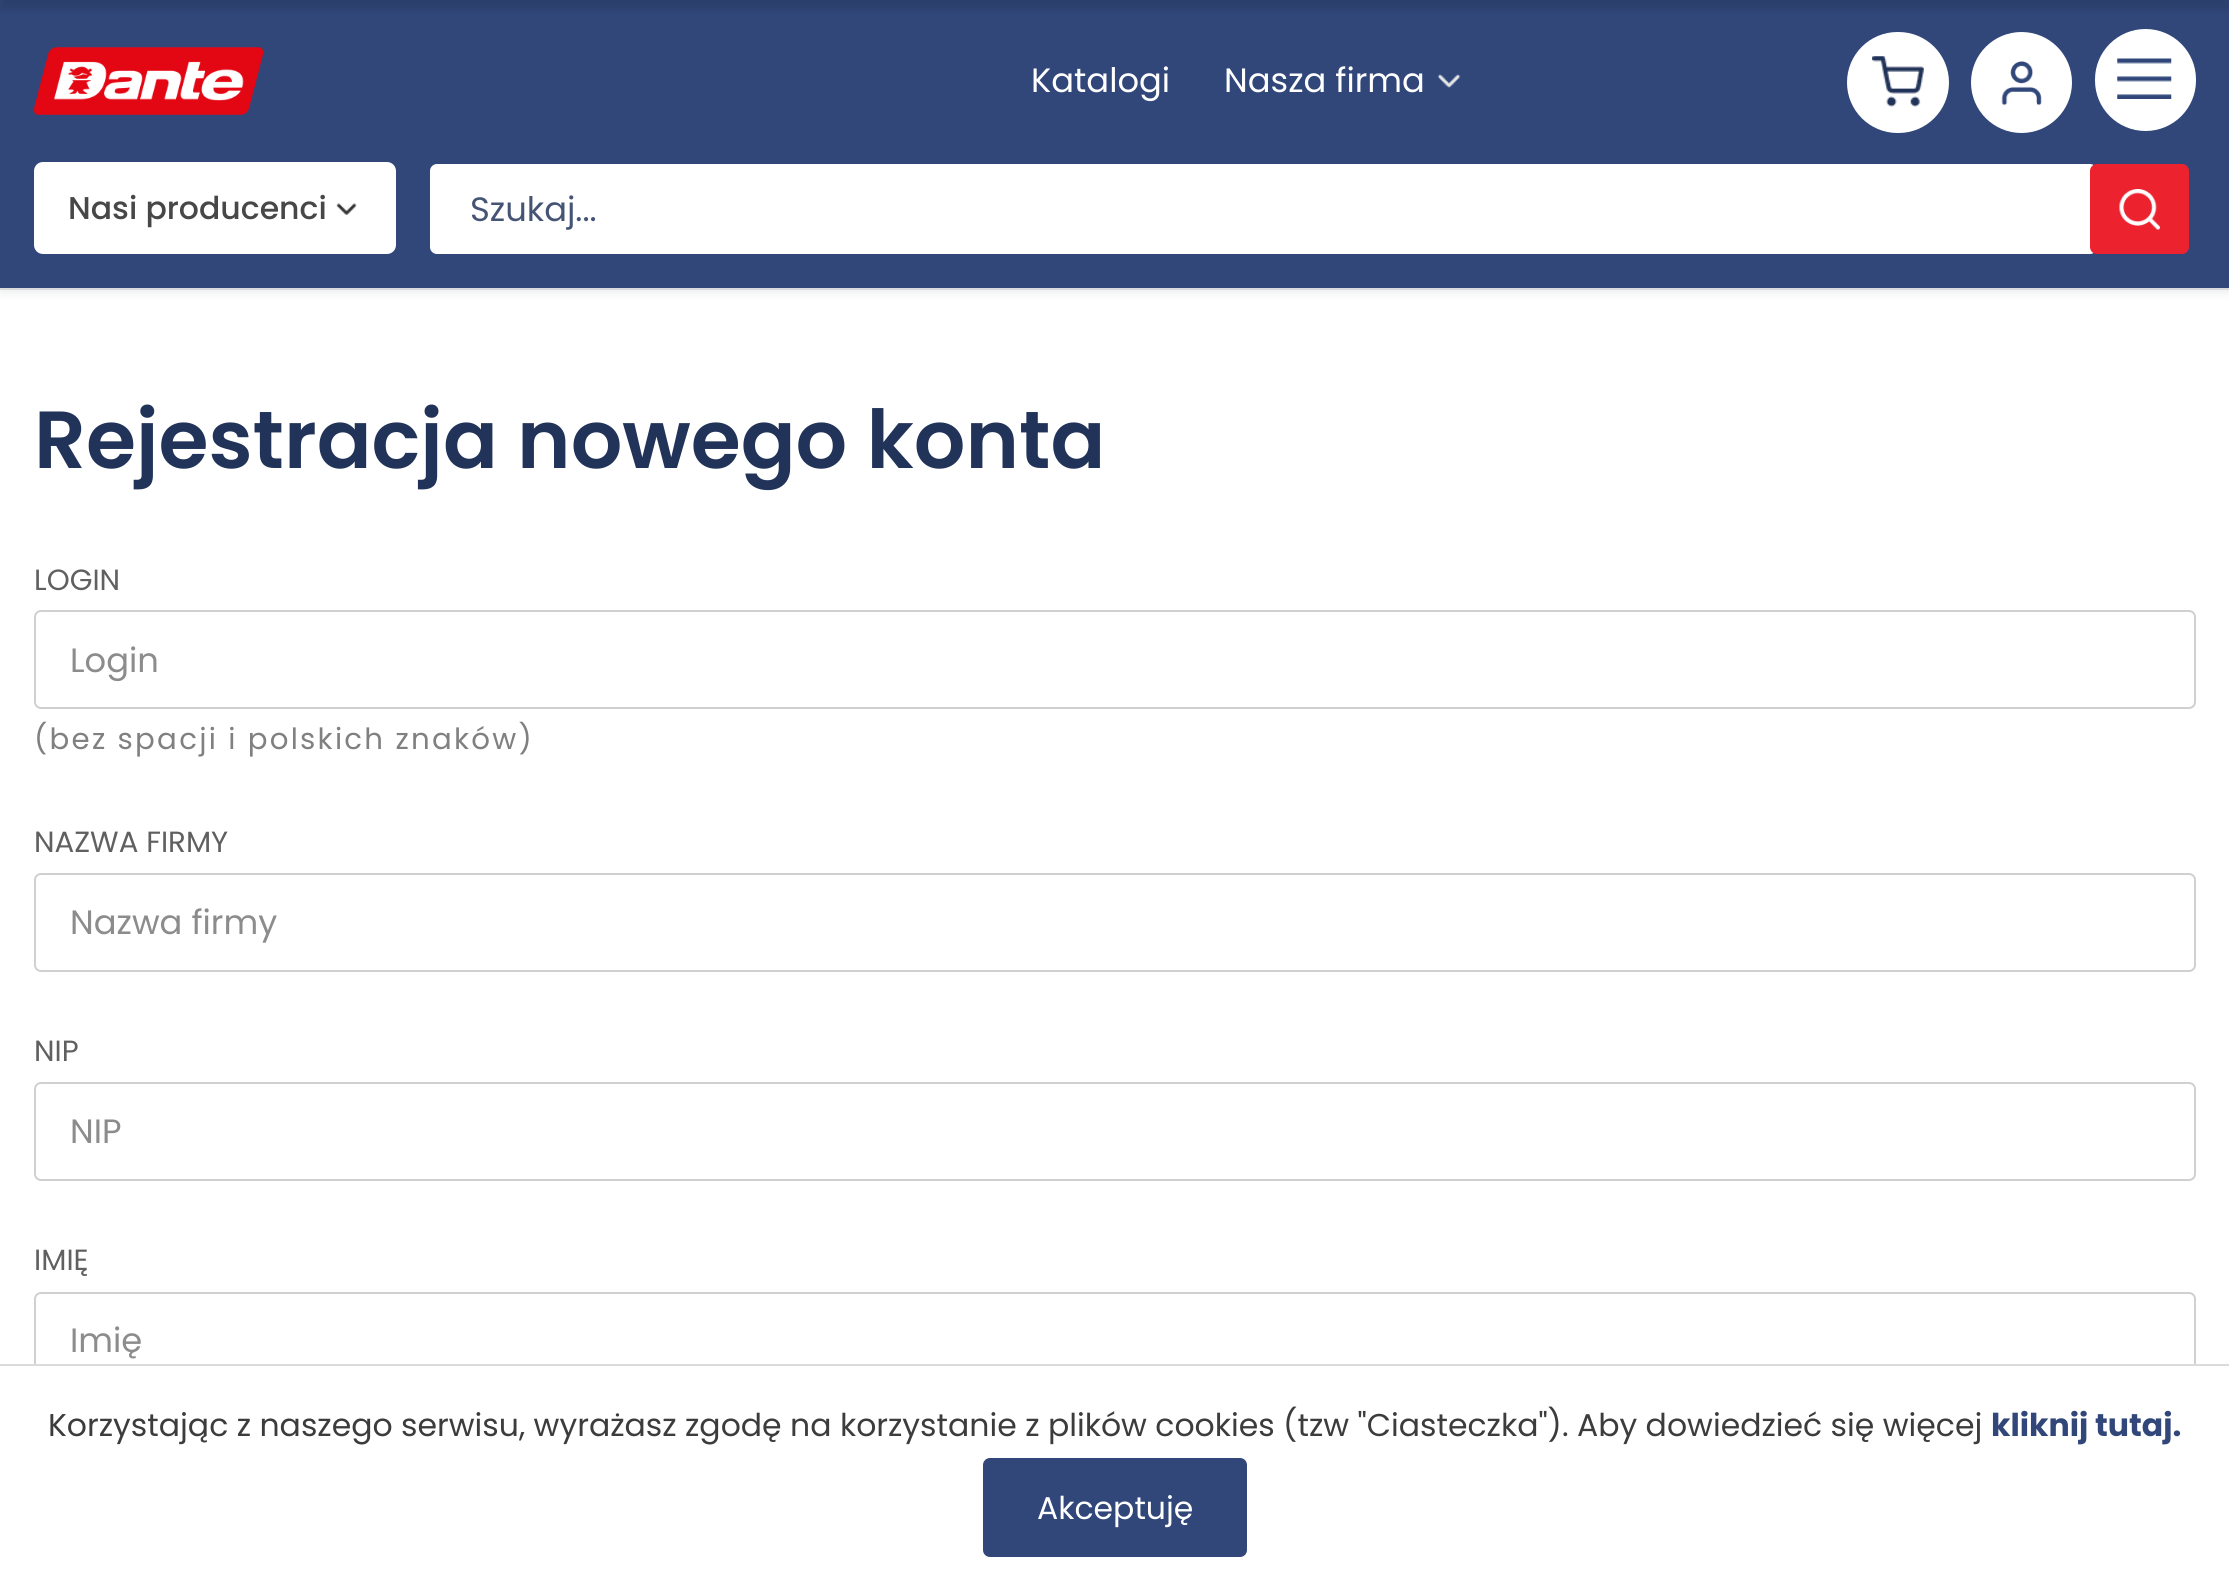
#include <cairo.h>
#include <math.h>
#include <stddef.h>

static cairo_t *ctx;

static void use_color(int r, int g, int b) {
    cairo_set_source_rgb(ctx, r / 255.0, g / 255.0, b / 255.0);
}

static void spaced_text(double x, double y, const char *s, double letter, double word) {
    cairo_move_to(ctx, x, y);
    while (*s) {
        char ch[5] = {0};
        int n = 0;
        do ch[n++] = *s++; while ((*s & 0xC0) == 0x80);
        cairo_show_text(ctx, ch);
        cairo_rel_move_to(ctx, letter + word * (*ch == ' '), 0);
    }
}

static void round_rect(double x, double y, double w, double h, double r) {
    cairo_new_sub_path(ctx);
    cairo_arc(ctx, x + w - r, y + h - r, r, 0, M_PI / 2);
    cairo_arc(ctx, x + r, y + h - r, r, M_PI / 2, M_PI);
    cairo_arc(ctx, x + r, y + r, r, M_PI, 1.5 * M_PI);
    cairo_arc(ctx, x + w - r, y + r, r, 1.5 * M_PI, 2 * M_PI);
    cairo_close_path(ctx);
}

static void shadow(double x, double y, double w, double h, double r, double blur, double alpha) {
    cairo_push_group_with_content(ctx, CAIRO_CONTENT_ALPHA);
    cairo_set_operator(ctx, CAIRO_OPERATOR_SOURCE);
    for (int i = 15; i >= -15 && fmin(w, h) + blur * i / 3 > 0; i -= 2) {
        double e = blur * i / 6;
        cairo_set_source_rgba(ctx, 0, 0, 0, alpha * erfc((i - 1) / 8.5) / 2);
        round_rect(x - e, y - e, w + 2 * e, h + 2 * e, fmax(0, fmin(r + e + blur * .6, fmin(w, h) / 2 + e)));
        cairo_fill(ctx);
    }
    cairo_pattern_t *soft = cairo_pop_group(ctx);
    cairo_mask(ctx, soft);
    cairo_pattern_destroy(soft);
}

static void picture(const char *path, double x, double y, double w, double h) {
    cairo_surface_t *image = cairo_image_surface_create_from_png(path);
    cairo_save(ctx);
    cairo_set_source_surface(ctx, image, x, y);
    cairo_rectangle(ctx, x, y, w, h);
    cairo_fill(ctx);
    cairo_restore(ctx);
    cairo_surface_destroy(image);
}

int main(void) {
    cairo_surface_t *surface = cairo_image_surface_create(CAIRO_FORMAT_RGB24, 2229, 1593);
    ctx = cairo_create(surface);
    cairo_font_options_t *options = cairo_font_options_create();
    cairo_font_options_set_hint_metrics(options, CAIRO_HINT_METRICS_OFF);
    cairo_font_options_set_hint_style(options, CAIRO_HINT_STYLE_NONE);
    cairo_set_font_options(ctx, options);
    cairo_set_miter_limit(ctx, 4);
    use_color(255, 255, 255);
    cairo_paint(ctx);
    cairo_rectangle(ctx, -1, -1, 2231, 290);
    use_color(229, 229, 229);
    cairo_stroke(ctx);
    use_color(113, 119, 131);
    shadow(0, 5, 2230, 288, 0, 4.5, 0.13);
    use_color(49, 71, 122);
    cairo_rectangle(ctx, 0, 0, 2229, 288);
    cairo_fill(ctx);
    use_color(0, 0, 0);
    shadow(0, -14, 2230, 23, 0, 4.5, 0.12);
    use_color(255, 255, 255);
    round_rect(1847, 32, 102, 101, 50.5);
    cairo_fill(ctx);
    picture("img1.png", 1872, 56, 52, 51);
    picture("img2.png", 33, 47, 231, 68);
    cairo_select_font_face(ctx, "Poppins", CAIRO_FONT_SLANT_NORMAL, CAIRO_FONT_WEIGHT_NORMAL);
    cairo_set_font_size(ctx, 33.75);
    cairo_move_to(ctx, 1031, 92);
    cairo_show_text(ctx, "Katalogi");
    cairo_move_to(ctx, 1224, 92);
    cairo_show_text(ctx, "Nasza firma");
    picture("img3.png", 1437, 74, 24, 14);
    cairo_arc(ctx, 2021.5, 82.5, 50.5, 0, 2 * M_PI);
    cairo_fill(ctx);
    picture("img4.png", 2001, 61, 41, 45);
    round_rect(2095, 29, 101, 102, 50.5);
    cairo_fill(ctx);
    picture("img5.png", 2117, 58, 55, 41);
    round_rect(34, 162, 362, 92, 9);
    cairo_fill(ctx);
    cairo_select_font_face(ctx, "Poppins Medium", CAIRO_FONT_SLANT_NORMAL, CAIRO_FONT_WEIGHT_NORMAL);
    cairo_set_font_size(ctx, 31.5);
    use_color(71, 71, 71);
    cairo_move_to(ctx, 68, 219);
    cairo_show_text(ctx, "Nasi producenci");
    picture("img6.png", 336, 203, 21, 12);
    use_color(255, 255, 255);
    round_rect(430, 164, 1667, 90, 7);
    cairo_fill(ctx);
    cairo_select_font_face(ctx, "Poppins", CAIRO_FONT_SLANT_NORMAL, CAIRO_FONT_WEIGHT_NORMAL);
    cairo_set_font_size(ctx, 33.75);
    use_color(69, 83, 117);
    cairo_move_to(ctx, 470, 221);
    cairo_show_text(ctx, "Szukaj...");
    use_color(236, 34, 46);
    round_rect(2090, 164, 99, 90, 7);
    cairo_fill(ctx);
    picture("img7.png", 2119, 189, 41, 41);
    cairo_select_font_face(ctx, "Poppins SemiBold", CAIRO_FONT_SLANT_NORMAL, CAIRO_FONT_WEIGHT_NORMAL);
    cairo_set_font_size(ctx, 81);
    use_color(34, 51, 89);
    cairo_move_to(ctx, 34, 468);
    cairo_show_text(ctx, "Rejestracja nowego konta");
    cairo_select_font_face(ctx, "Poppins", CAIRO_FONT_SLANT_NORMAL, CAIRO_FONT_WEIGHT_NORMAL);
    cairo_set_font_size(ctx, 29.25);
    use_color(96, 96, 96);
    cairo_move_to(ctx, 34, 590);
    cairo_show_text(ctx, "LOGIN");
    round_rect(35, 611, 2160, 97, 6);
    use_color(208, 208, 208);
    cairo_stroke(ctx);
    cairo_set_font_size(ctx, 33.75);
    use_color(140, 140, 140);
    cairo_move_to(ctx, 70, 672);
    cairo_show_text(ctx, "Login");
    cairo_set_font_size(ctx, 29.25);
    use_color(128, 128, 128);
    spaced_text(34, 749, "(bez spacji i polskich znaków)", 2.25, 0);
    use_color(96, 96, 96);
    cairo_move_to(ctx, 34, 852);
    cairo_show_text(ctx, "NAZWA FIRMY");
    round_rect(35, 874, 2160, 97, 6);
    use_color(208, 208, 208);
    cairo_stroke(ctx);
    cairo_set_font_size(ctx, 33.75);
    use_color(140, 140, 140);
    cairo_move_to(ctx, 70, 934);
    cairo_show_text(ctx, "Nazwa firmy");
    cairo_set_font_size(ctx, 29.25);
    use_color(96, 96, 96);
    cairo_move_to(ctx, 34, 1061);
    cairo_show_text(ctx, "NIP");
    round_rect(35, 1083, 2160, 97, 6);
    use_color(208, 208, 208);
    cairo_stroke(ctx);
    cairo_set_font_size(ctx, 33.75);
    use_color(140, 140, 140);
    cairo_move_to(ctx, 70, 1143);
    cairo_show_text(ctx, "NIP");
    cairo_set_font_size(ctx, 29.25);
    use_color(96, 96, 96);
    cairo_move_to(ctx, 34, 1270);
    cairo_show_text(ctx, "IMIĘ");
    round_rect(35, 1293, 2160, 97, 6);
    use_color(208, 208, 208);
    cairo_stroke(ctx);
    cairo_set_font_size(ctx, 33.75);
    use_color(140, 140, 140);
    cairo_move_to(ctx, 70, 1352);
    cairo_show_text(ctx, "Imię");
    use_color(255, 255, 255);
    cairo_rectangle(ctx, 34, 1366, 2162, 25);
    cairo_fill(ctx);
    use_color(219, 219, 222);
    cairo_rectangle(ctx, 0, 1364, 2229, 2);
    cairo_fill(ctx);
    cairo_set_font_size(ctx, 31.5);
    use_color(60, 60, 60);
    cairo_move_to(ctx, 48, 1436);
    cairo_show_text(ctx, "Korzystając z naszego serwisu, wyrażasz zgodę na korzystanie z plików cookies (tzw \"Ciasteczka\"). Aby dowiedzieć się więcej");
    cairo_select_font_face(ctx, "Poppins", CAIRO_FONT_SLANT_NORMAL, CAIRO_FONT_WEIGHT_BOLD);
    use_color(49, 71, 122);
    cairo_move_to(ctx, 1991, 1436);
    cairo_show_text(ctx, "kliknij tutaj.");
    round_rect(983, 1458, 264, 99, 7);
    cairo_fill(ctx);
    cairo_select_font_face(ctx, "Poppins", CAIRO_FONT_SLANT_NORMAL, CAIRO_FONT_WEIGHT_NORMAL);
    use_color(255, 255, 255);
    cairo_move_to(ctx, 1037, 1519);
    cairo_show_text(ctx, "Akceptuję");
    cairo_surface_write_to_png(surface, "result.png");
    cairo_font_options_destroy(options);
    cairo_destroy(ctx);
    cairo_surface_destroy(surface);
    return 0;
}
